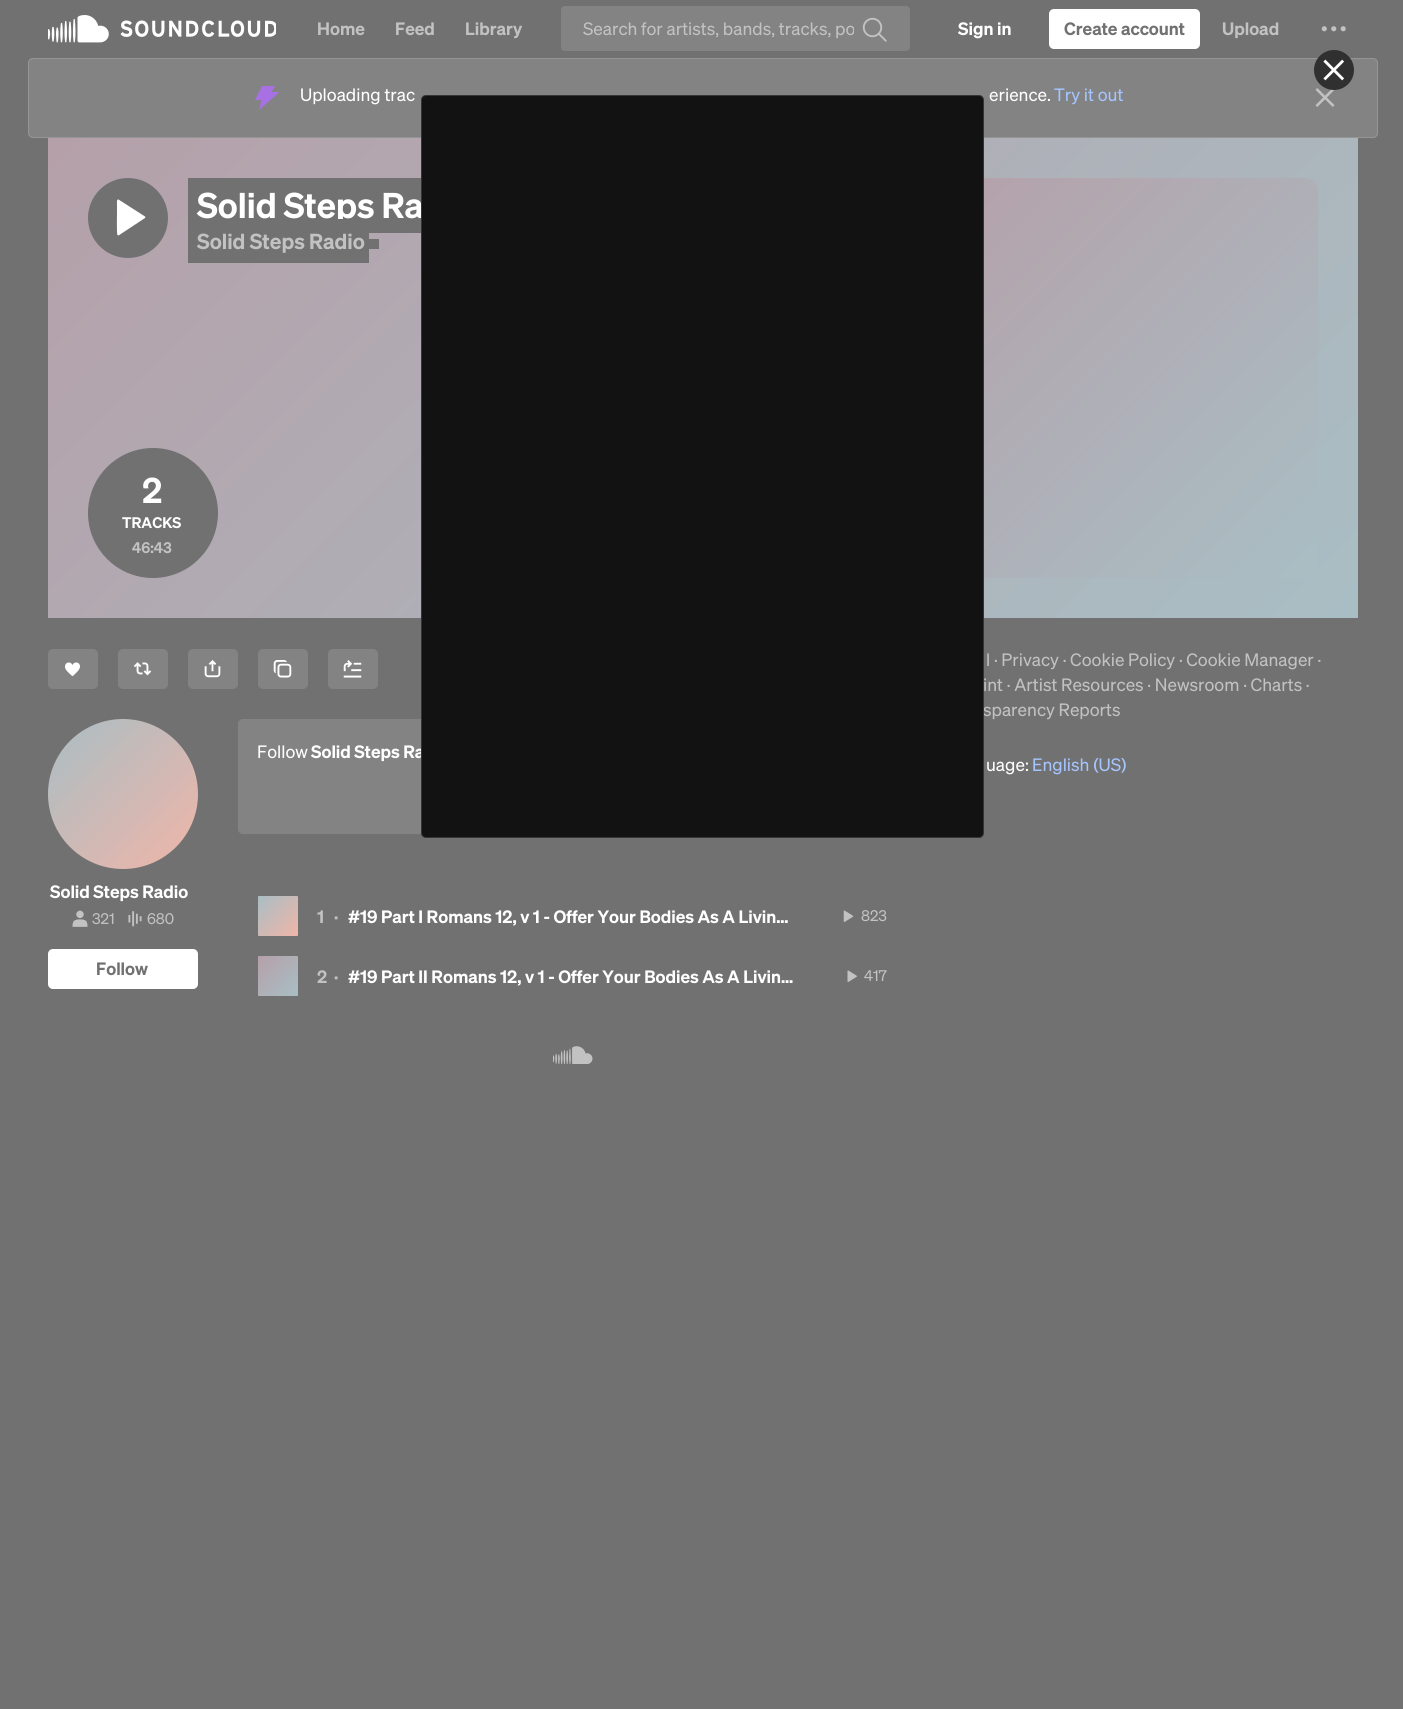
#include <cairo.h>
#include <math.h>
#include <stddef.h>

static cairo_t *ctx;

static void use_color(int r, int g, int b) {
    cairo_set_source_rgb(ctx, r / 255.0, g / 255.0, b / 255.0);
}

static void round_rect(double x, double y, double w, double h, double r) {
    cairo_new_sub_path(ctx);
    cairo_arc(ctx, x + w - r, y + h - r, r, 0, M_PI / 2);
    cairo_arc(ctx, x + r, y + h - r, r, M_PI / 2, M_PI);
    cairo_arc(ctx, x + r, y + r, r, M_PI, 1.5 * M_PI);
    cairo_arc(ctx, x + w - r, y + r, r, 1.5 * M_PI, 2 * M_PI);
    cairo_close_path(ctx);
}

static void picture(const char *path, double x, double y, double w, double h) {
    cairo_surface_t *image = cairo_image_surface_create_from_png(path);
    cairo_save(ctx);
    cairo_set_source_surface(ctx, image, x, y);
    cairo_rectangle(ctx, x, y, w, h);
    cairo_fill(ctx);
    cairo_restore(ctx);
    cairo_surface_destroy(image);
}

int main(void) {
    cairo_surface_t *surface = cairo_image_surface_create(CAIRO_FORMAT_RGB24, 1403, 1709);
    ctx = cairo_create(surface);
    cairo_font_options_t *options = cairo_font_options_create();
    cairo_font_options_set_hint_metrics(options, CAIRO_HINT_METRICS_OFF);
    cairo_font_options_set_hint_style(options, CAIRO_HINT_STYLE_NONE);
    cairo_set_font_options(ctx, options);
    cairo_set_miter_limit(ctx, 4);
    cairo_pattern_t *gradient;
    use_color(113, 113, 113);
    cairo_paint(ctx);
    picture("img1.png", 48, 15, 228, 28);
    cairo_select_font_face(ctx, "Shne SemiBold", CAIRO_FONT_SLANT_NORMAL, CAIRO_FONT_WEIGHT_NORMAL);
    cairo_set_font_size(ctx, 17.5);
    use_color(194, 194, 194);
    cairo_move_to(ctx, 317, 35);
    cairo_show_text(ctx, "Home");
    cairo_move_to(ctx, 395, 35);
    cairo_show_text(ctx, "Feed");
    cairo_move_to(ctx, 465, 35);
    cairo_show_text(ctx, "Library");
    use_color(131, 131, 131);
    round_rect(561, 6, 349, 45, 4);
    cairo_fill(ctx);
    cairo_save(ctx);
    cairo_rectangle(ctx, 583, 15, 271, 28);
    cairo_clip(ctx);
    cairo_select_font_face(ctx, "Shne", CAIRO_FONT_SLANT_NORMAL, CAIRO_FONT_WEIGHT_NORMAL);
    use_color(194, 194, 194);
    cairo_move_to(ctx, 583, 35);
    cairo_show_text(ctx, "Search for artists, bands, tracks, po");
    cairo_restore(ctx);
    picture("img2.png", 862, 17, 25, 25);
    use_color(255, 255, 255);
    cairo_move_to(ctx, 958, 35);
    cairo_show_text(ctx, "Sign in");
    round_rect(1049, 9, 151, 40, 5);
    cairo_fill(ctx);
    use_color(113, 113, 113);
    cairo_move_to(ctx, 1064, 35);
    cairo_show_text(ctx, "Create account");
    use_color(194, 194, 194);
    cairo_move_to(ctx, 1222, 35);
    cairo_show_text(ctx, "Upload");
    picture("img3.png", 1321, 26, 25, 6);
    use_color(131, 131, 131);
    round_rect(28, 58, 1350, 80, 5);
    cairo_fill(ctx);
    round_rect(28.5, 58.5, 1349, 79, 4.5);
    cairo_set_source_rgba(ctx, 1, 1, 1, 0.15);
    cairo_set_line_width(ctx, 1);
    cairo_stroke(ctx);
    use_color(167, 113, 228);
    cairo_new_path(ctx);
    cairo_move_to(ctx, 262, 86);
    cairo_line_to(ctx, 255, 100);
    cairo_line_to(ctx, 261.5, 100);
    cairo_line_to(ctx, 259, 110);
    cairo_line_to(ctx, 279.5, 92);
    cairo_line_to(ctx, 271.5, 92);
    cairo_line_to(ctx, 275, 86);
    cairo_close_path(ctx);
    cairo_fill(ctx);
    cairo_select_font_face(ctx, "Shne", CAIRO_FONT_SLANT_NORMAL, CAIRO_FONT_WEIGHT_NORMAL);
    use_color(255, 255, 255);
    cairo_move_to(ctx, 300, 101);
    cairo_show_text(ctx, "Uploading trac");
    cairo_move_to(ctx, 989, 101);
    cairo_show_text(ctx, "erience.");
    use_color(165, 197, 255);
    cairo_move_to(ctx, 1054, 101);
    cairo_show_text(ctx, "Try it out");
    picture("img4.png", 1315, 88, 20, 19);
    gradient = cairo_pattern_create_linear(255, -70, 1150, 825);
    cairo_pattern_add_color_stop_rgba(gradient, 0, 0.71, 0.627, 0.663, 1);
    cairo_pattern_add_color_stop_rgba(gradient, 1, 0.663, 0.745, 0.769, 1);
    cairo_set_source(ctx, gradient);
    cairo_pattern_destroy(gradient);
    cairo_rectangle(ctx, 48, 138, 1310, 480);
    cairo_fill(ctx);
    use_color(113, 113, 113);
    cairo_arc(ctx, 128, 218, 40, 0, 2 * M_PI);
    cairo_fill(ctx);
    use_color(255, 255, 255);
    cairo_set_fill_rule(ctx, CAIRO_FILL_RULE_EVEN_ODD);
    cairo_new_path(ctx);
    cairo_move_to(ctx, 145, 216.5);
    cairo_curve_to(ctx, 145.5, 217, 145.5, 217.5, 145, 218);
    cairo_line_to(ctx, 118.5, 235.5);
    cairo_line_to(ctx, 117.5, 235);
    cairo_curve_to(ctx, 116.5, 234.5, 117, 214.5, 117, 212);
    cairo_line_to(ctx, 117, 206.5);
    cairo_curve_to(ctx, 117, 202.5, 116.5, 199, 118.5, 199.5);
    cairo_close_path(ctx);
    cairo_fill(ctx);
    use_color(113, 113, 113);
    cairo_rectangle(ctx, 188, 178, 233, 55);
    cairo_fill(ctx);
    cairo_select_font_face(ctx, "Shne SemiBold", CAIRO_FONT_SLANT_NORMAL, CAIRO_FONT_WEIGHT_NORMAL);
    cairo_set_font_size(ctx, 35);
    use_color(255, 255, 255);
    cairo_move_to(ctx, 197, 218);
    cairo_show_text(ctx, "Solid Steps Ra");
    use_color(113, 113, 113);
    cairo_rectangle(ctx, 188, 219, 181, 44);
    cairo_fill(ctx);
    cairo_set_font_size(ctx, 21.25);
    use_color(194, 194, 194);
    cairo_move_to(ctx, 197, 249);
    cairo_show_text(ctx, "Solid Steps Radio");
    use_color(113, 113, 113);
    cairo_rectangle(ctx, 369, 239, 10, 10);
    cairo_fill(ctx);
    gradient = cairo_pattern_create_linear(918, 178, 1318, 578);
    cairo_pattern_add_color_stop_rgba(gradient, 0, 0.71, 0.627, 0.663, 1);
    cairo_pattern_add_color_stop_rgba(gradient, 1, 0.663, 0.745, 0.769, 1);
    cairo_set_source(ctx, gradient);
    cairo_pattern_destroy(gradient);
    round_rect(918, 178, 400, 400, 13);
    cairo_fill(ctx);
    use_color(113, 113, 113);
    cairo_arc(ctx, 153, 513, 65, 0, 2 * M_PI);
    cairo_fill(ctx);
    cairo_set_font_size(ctx, 35);
    use_color(255, 255, 255);
    cairo_move_to(ctx, 142, 503);
    cairo_show_text(ctx, "2");
    cairo_set_font_size(ctx, 15);
    cairo_move_to(ctx, 122, 528);
    cairo_show_text(ctx, "TRACKS");
    use_color(194, 194, 194);
    cairo_move_to(ctx, 132, 553);
    cairo_show_text(ctx, "46:43");
    cairo_select_font_face(ctx, "Shne", CAIRO_FONT_SLANT_NORMAL, CAIRO_FONT_WEIGHT_NORMAL);
    cairo_set_font_size(ctx, 17.5);
    cairo_move_to(ctx, 986, 666);
    cairo_show_text(ctx, "l · Privacy · Cookie Policy · Cookie Manager ·");
    cairo_move_to(ctx, 983, 691);
    cairo_show_text(ctx, "int · Artist Resources · Newsroom · Charts ·");
    cairo_move_to(ctx, 983, 716);
    cairo_show_text(ctx, "sparency Reports");
    use_color(255, 255, 255);
    cairo_move_to(ctx, 986, 771);
    cairo_show_text(ctx, "uage:");
    use_color(165, 197, 255);
    cairo_move_to(ctx, 1032, 771);
    cairo_show_text(ctx, "English (US)");
    use_color(131, 131, 131);
    round_rect(48, 649, 50, 40, 5);
    cairo_fill(ctx);
    picture("img5.png", 65, 662, 15, 15);
    round_rect(118, 649, 50, 40, 5);
    cairo_fill(ctx);
    picture("img6.png", 133, 662, 19, 14);
    round_rect(188, 649, 50, 40, 5);
    cairo_fill(ctx);
    picture("img7.png", 204, 660, 17, 18);
    round_rect(258, 649, 50, 40, 5);
    cairo_fill(ctx);
    picture("img8.png", 273, 660, 19, 18);
    round_rect(328, 649, 50, 40, 5);
    cairo_fill(ctx);
    picture("img9.png", 343, 660, 19, 18);
    gradient = cairo_pattern_create_linear(47, 719, 198, 869);
    cairo_pattern_add_color_stop_rgba(gradient, 0, 0.663, 0.745, 0.769, 1);
    cairo_pattern_add_color_stop_rgba(gradient, 1, 0.941, 0.71, 0.659, 1);
    cairo_set_source(ctx, gradient);
    cairo_pattern_destroy(gradient);
    cairo_arc(ctx, 123, 794, 75, 0, 2 * M_PI);
    cairo_fill(ctx);
    cairo_select_font_face(ctx, "Shne SemiBold", CAIRO_FONT_SLANT_NORMAL, CAIRO_FONT_WEIGHT_NORMAL);
    use_color(255, 255, 255);
    cairo_move_to(ctx, 50, 898);
    cairo_show_text(ctx, "Solid Steps Radio");
    picture("img10.png", 72, 910, 16, 17);
    cairo_select_font_face(ctx, "Shne", CAIRO_FONT_SLANT_NORMAL, CAIRO_FONT_WEIGHT_NORMAL);
    cairo_set_font_size(ctx, 15);
    use_color(194, 194, 194);
    cairo_move_to(ctx, 92, 924);
    cairo_show_text(ctx, "321");
    picture("img11.png", 128, 911, 14, 16);
    cairo_move_to(ctx, 147, 924);
    cairo_show_text(ctx, "680");
    use_color(255, 255, 255);
    round_rect(48, 949, 150, 40, 5);
    cairo_fill(ctx);
    cairo_select_font_face(ctx, "Shne SemiBold", CAIRO_FONT_SLANT_NORMAL, CAIRO_FONT_WEIGHT_NORMAL);
    cairo_set_font_size(ctx, 17.5);
    use_color(113, 113, 113);
    cairo_move_to(ctx, 96, 975);
    cairo_show_text(ctx, "Follow");
    use_color(131, 131, 131);
    round_rect(238, 719, 670, 115, 5);
    cairo_fill(ctx);
    cairo_select_font_face(ctx, "Shne", CAIRO_FONT_SLANT_NORMAL, CAIRO_FONT_WEIGHT_NORMAL);
    use_color(255, 255, 255);
    cairo_move_to(ctx, 257, 758);
    cairo_show_text(ctx, "Follow");
    cairo_select_font_face(ctx, "Shne SemiBold", CAIRO_FONT_SLANT_NORMAL, CAIRO_FONT_WEIGHT_NORMAL);
    cairo_move_to(ctx, 311, 758);
    cairo_show_text(ctx, "Solid Steps Ra");
    gradient = cairo_pattern_create_linear(258, 896, 298, 936);
    cairo_pattern_add_color_stop_rgba(gradient, 0, 0.663, 0.745, 0.769, 1);
    cairo_pattern_add_color_stop_rgba(gradient, 1, 0.941, 0.71, 0.659, 1);
    cairo_set_source(ctx, gradient);
    cairo_pattern_destroy(gradient);
    round_rect(258, 896, 40, 40, 1);
    cairo_fill(ctx);
    use_color(194, 194, 194);
    cairo_move_to(ctx, 317, 923);
    cairo_show_text(ctx, "1");
    cairo_move_to(ctx, 334, 923);
    cairo_show_text(ctx, "·");
    use_color(255, 255, 255);
    cairo_move_to(ctx, 348, 923);
    cairo_show_text(ctx, "#19 Part I Romans 12, v 1 - Offer Your Bodies As A Livin…");
    picture("img12.png", 843, 910, 11, 12);
    cairo_select_font_face(ctx, "Shne", CAIRO_FONT_SLANT_NORMAL, CAIRO_FONT_WEIGHT_NORMAL);
    cairo_set_font_size(ctx, 15);
    use_color(194, 194, 194);
    cairo_move_to(ctx, 861, 921);
    cairo_show_text(ctx, "823");
    gradient = cairo_pattern_create_linear(258, 956, 298, 996);
    cairo_pattern_add_color_stop_rgba(gradient, 0, 0.71, 0.627, 0.663, 1);
    cairo_pattern_add_color_stop_rgba(gradient, 1, 0.663, 0.745, 0.769, 1);
    cairo_set_source(ctx, gradient);
    cairo_pattern_destroy(gradient);
    round_rect(258, 956, 40, 40, 1);
    cairo_fill(ctx);
    cairo_select_font_face(ctx, "Shne SemiBold", CAIRO_FONT_SLANT_NORMAL, CAIRO_FONT_WEIGHT_NORMAL);
    cairo_set_font_size(ctx, 17.5);
    use_color(194, 194, 194);
    cairo_move_to(ctx, 317, 983);
    cairo_show_text(ctx, "2");
    cairo_move_to(ctx, 334, 983);
    cairo_show_text(ctx, "·");
    use_color(255, 255, 255);
    cairo_move_to(ctx, 348, 983);
    cairo_show_text(ctx, "#19 Part II Romans 12, v 1 - Offer Your Bodies As A Livin…");
    picture("img13.png", 847, 970, 10, 12);
    cairo_select_font_face(ctx, "Shne", CAIRO_FONT_SLANT_NORMAL, CAIRO_FONT_WEIGHT_NORMAL);
    cairo_set_font_size(ctx, 15);
    use_color(194, 194, 194);
    cairo_move_to(ctx, 864, 981);
    cairo_show_text(ctx, "417");
    picture("img14.png", 553, 1046, 40, 18);
    use_color(48, 48, 48);
    cairo_arc(ctx, 1334, 70, 20, 0, 2 * M_PI);
    cairo_fill(ctx);
    picture("img15.png", 1323, 59, 21, 22);
    use_color(18, 18, 18);
    round_rect(421, 95, 563, 743, 5);
    cairo_fill(ctx);
    round_rect(421.5, 95.5, 562, 742, 4.5);
    cairo_set_source_rgba(ctx, 1, 1, 1, 0.15);
    cairo_stroke(ctx);
    cairo_surface_write_to_png(surface, "result.png");
    cairo_font_options_destroy(options);
    cairo_destroy(ctx);
    cairo_surface_destroy(surface);
    return 0;
}
